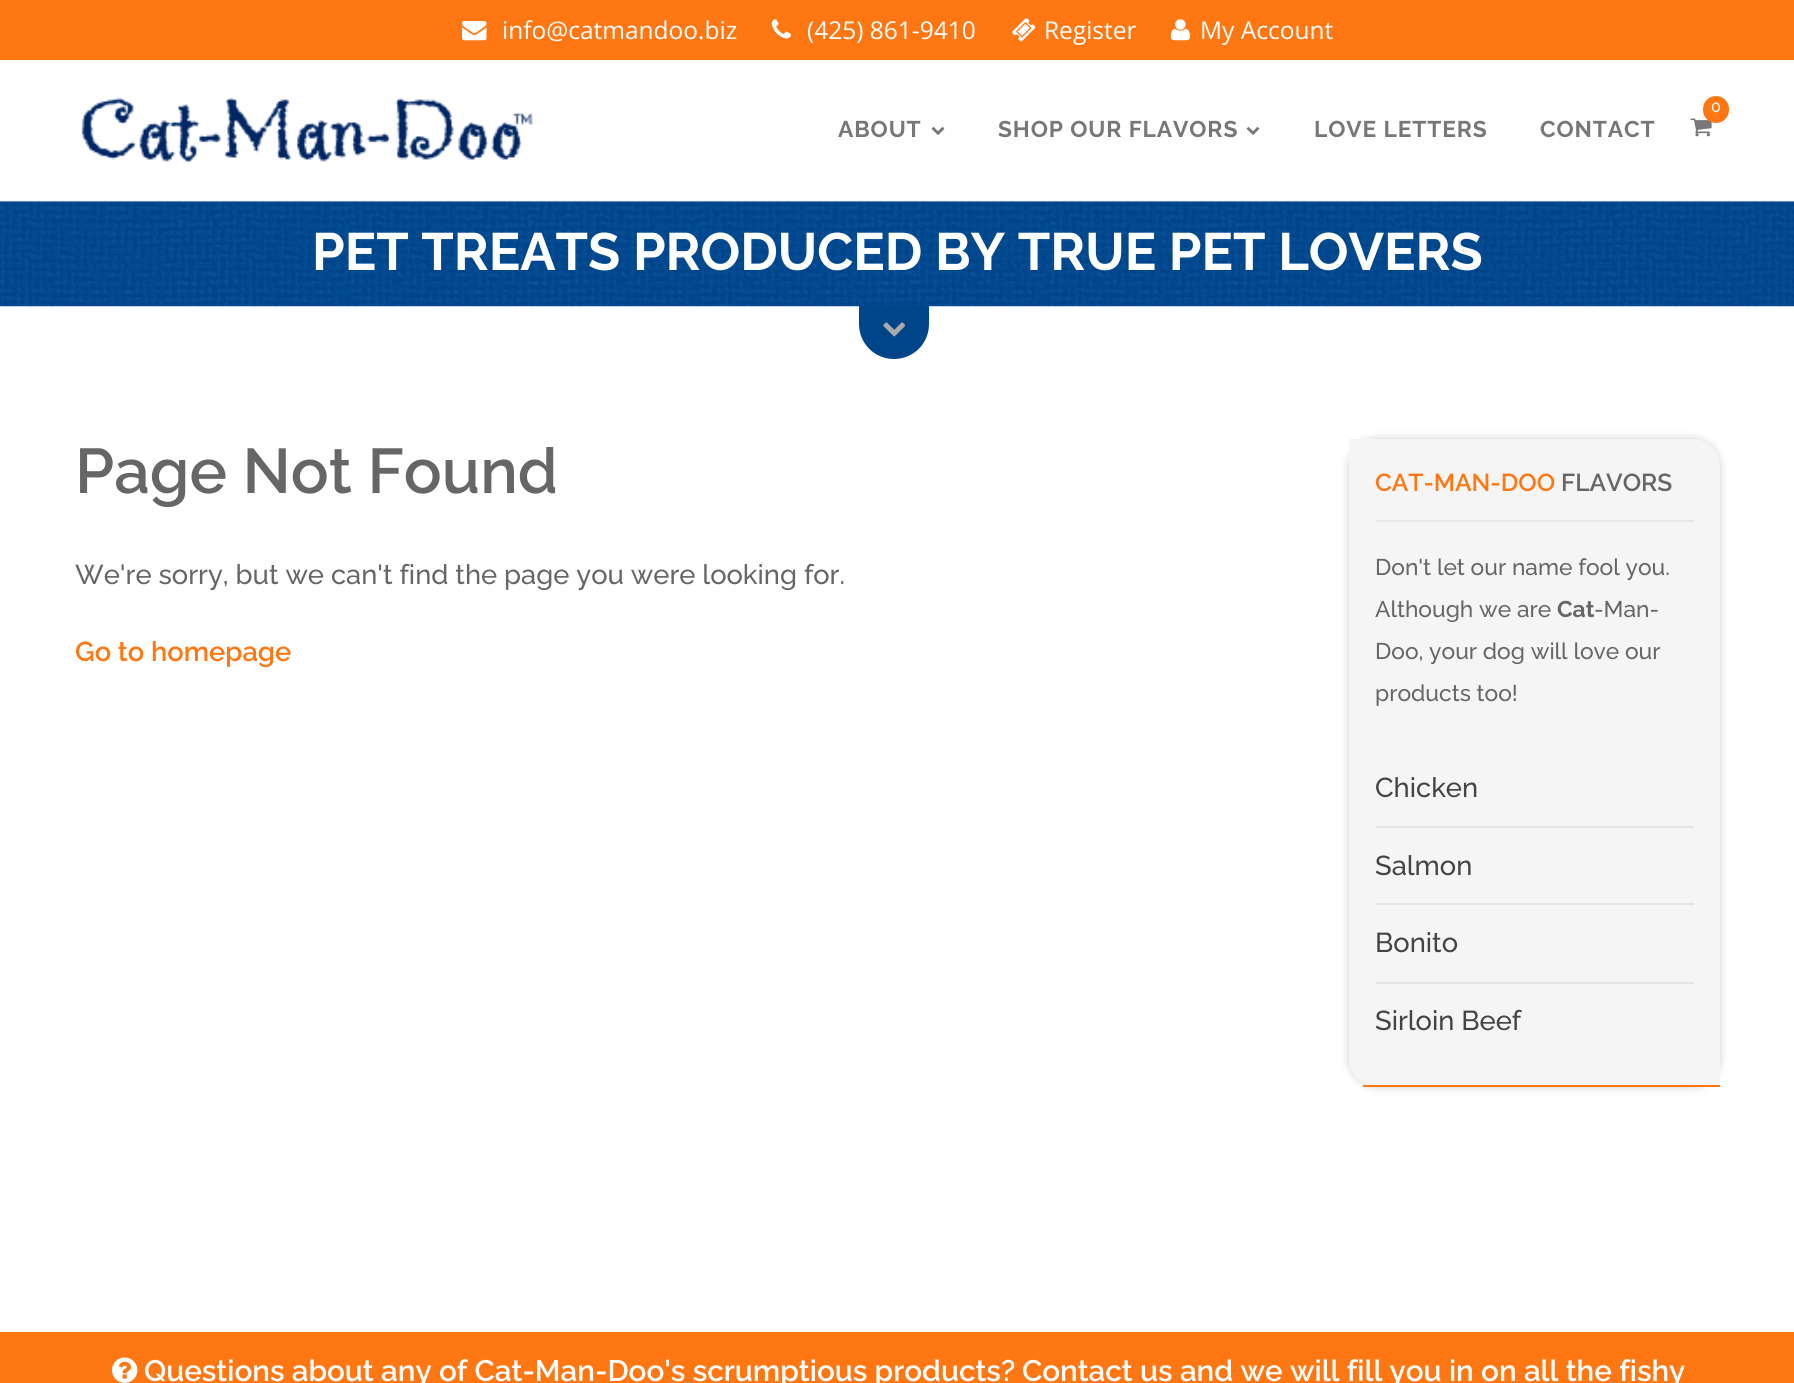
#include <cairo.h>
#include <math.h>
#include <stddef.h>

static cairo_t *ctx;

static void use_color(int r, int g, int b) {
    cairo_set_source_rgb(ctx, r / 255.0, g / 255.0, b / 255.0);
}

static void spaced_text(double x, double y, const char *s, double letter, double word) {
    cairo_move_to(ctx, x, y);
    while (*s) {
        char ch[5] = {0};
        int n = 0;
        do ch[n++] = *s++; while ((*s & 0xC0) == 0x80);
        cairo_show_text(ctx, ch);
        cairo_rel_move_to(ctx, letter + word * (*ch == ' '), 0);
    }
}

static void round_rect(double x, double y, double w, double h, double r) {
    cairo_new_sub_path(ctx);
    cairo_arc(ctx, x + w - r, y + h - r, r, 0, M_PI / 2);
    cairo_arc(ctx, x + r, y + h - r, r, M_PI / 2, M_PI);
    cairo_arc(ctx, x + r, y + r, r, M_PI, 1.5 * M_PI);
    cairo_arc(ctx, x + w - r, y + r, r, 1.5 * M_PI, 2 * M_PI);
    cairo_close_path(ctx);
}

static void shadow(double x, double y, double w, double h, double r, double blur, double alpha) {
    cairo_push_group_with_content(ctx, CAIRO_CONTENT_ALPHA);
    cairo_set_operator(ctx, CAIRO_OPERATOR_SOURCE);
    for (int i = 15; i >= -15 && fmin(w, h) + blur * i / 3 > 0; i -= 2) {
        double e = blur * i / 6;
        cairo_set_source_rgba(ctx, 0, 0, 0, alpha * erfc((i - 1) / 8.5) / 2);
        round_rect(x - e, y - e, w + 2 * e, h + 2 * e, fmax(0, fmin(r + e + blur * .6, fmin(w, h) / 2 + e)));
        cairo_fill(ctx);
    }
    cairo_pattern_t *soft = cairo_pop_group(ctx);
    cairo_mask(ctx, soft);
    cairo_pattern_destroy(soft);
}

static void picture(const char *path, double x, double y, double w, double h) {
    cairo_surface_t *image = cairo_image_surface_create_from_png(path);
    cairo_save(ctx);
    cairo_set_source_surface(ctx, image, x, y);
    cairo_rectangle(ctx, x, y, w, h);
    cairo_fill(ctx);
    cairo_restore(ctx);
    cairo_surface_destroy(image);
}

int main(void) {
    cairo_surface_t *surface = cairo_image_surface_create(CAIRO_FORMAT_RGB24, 1794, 1383);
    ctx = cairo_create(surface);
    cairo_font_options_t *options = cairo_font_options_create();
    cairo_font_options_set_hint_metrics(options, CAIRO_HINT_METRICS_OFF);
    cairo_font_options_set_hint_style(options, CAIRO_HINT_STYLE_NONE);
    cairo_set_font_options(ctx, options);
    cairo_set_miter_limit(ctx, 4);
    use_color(255, 255, 255);
    cairo_paint(ctx);
    use_color(255, 119, 19);
    cairo_rectangle(ctx, 0, 0, 1794, 60);
    cairo_fill(ctx);
    picture("img1.png", 462, 21, 25, 20);
    cairo_select_font_face(ctx, "Open Sans", CAIRO_FONT_SLANT_NORMAL, CAIRO_FONT_WEIGHT_NORMAL);
    cairo_set_font_size(ctx, 24.5);
    use_color(255, 255, 255);
    cairo_move_to(ctx, 502, 39);
    cairo_show_text(ctx, "info@catmandoo.biz");
    picture("img2.png", 771, 19, 20, 20);
    cairo_move_to(ctx, 807, 39);
    cairo_show_text(ctx, "(425) 861-9410");
    picture("img3.png", 1012, 18, 24, 24);
    cairo_move_to(ctx, 1044, 39);
    cairo_show_text(ctx, "Register");
    picture("img4.png", 1170, 19, 20, 22);
    cairo_move_to(ctx, 1200, 39);
    cairo_show_text(ctx, "My Account");
    use_color(247, 247, 247);
    cairo_rectangle(ctx, 0, 200, 1794, 1);
    cairo_fill(ctx);
    picture("img5.png", 81, 97, 452, 66);
    picture("img6.png", 1690, 118, 22, 19);
    use_color(255, 119, 19);
    round_rect(1703, 96, 26, 27, 13);
    cairo_fill(ctx);
    cairo_select_font_face(ctx, "Raleway Medium", CAIRO_FONT_SLANT_NORMAL, CAIRO_FONT_WEIGHT_NORMAL);
    cairo_set_font_size(ctx, 16);
    use_color(255, 255, 255);
    cairo_move_to(ctx, 1711, 112);
    cairo_show_text(ctx, "0");
    cairo_select_font_face(ctx, "Raleway", CAIRO_FONT_SLANT_NORMAL, CAIRO_FONT_WEIGHT_BOLD);
    cairo_set_font_size(ctx, 22.75);
    use_color(119, 119, 119);
    spaced_text(838, 137, "ABOUT", 0.9, 0);
    picture("img7.png", 931, 127, 14, 8);
    spaced_text(998, 137, "SHOP OUR FLAVORS", 0.9, 0);
    picture("img7.png", 1246, 127, 14, 8);
    spaced_text(1314, 137, "LOVE LETTERS", 0.9, 0);
    spaced_text(1540, 137, "CONTACT", 0.9, 0);
    use_color(232, 232, 232);
    cairo_rectangle(ctx, 0, 201, 1794, 1);
    cairo_fill(ctx);
    picture("img8.png", 0, 201, 1794, 106);
    cairo_set_font_size(ctx, 52.5);
    use_color(255, 255, 255);
    cairo_move_to(ctx, 312, 270);
    cairo_show_text(ctx, "PET TREATS PRODUCED BY TRUE PET LOVERS");
    use_color(0, 68, 138);
    cairo_new_path(ctx);
    cairo_move_to(ctx, 859, 306);
    cairo_line_to(ctx, 929, 306);
    cairo_line_to(ctx, 929, 324);
    cairo_curve_to(ctx, 929, 343.5, 913.5, 359, 894, 359);
    cairo_curve_to(ctx, 874.5, 359, 859, 343.5, 859, 324);
    cairo_close_path(ctx);
    cairo_fill(ctx);
    picture("img9.png", 883, 322, 23, 15);
    cairo_select_font_face(ctx, "Raleway SemiBold", CAIRO_FONT_SLANT_NORMAL, CAIRO_FONT_WEIGHT_NORMAL);
    cairo_set_font_size(ctx, 63);
    use_color(102, 102, 102);
    cairo_move_to(ctx, 75, 493);
    cairo_show_text(ctx, "Page Not Found");
    cairo_select_font_face(ctx, "Raleway Medium", CAIRO_FONT_SLANT_NORMAL, CAIRO_FONT_WEIGHT_NORMAL);
    cairo_set_font_size(ctx, 27.3);
    cairo_move_to(ctx, 75, 584);
    cairo_show_text(ctx, "We're sorry, but we can't find the page you were looking for.");
    cairo_select_font_face(ctx, "Raleway SemiBold", CAIRO_FONT_SLANT_NORMAL, CAIRO_FONT_WEIGHT_NORMAL);
    use_color(255, 119, 19);
    cairo_move_to(ctx, 75, 661);
    cairo_show_text(ctx, "Go to homepage");
    use_color(0, 0, 0);
    shadow(1349, 439, 371, 648, 28, 4.5, 0.2);
    use_color(245, 245, 245);
    cairo_new_path(ctx);
    cairo_move_to(ctx, 1349, 439);
    cairo_line_to(ctx, 1692, 439);
    cairo_curve_to(ctx, 1707.5, 439, 1720, 451.5, 1720, 467);
    cairo_line_to(ctx, 1720, 1087);
    cairo_line_to(ctx, 1377, 1087);
    cairo_curve_to(ctx, 1361.5, 1087, 1349, 1074.5, 1349, 1059);
    cairo_close_path(ctx);
    cairo_fill(ctx);
    use_color(255, 119, 19);
    cairo_rectangle(ctx, 1363, 1085, 357, 2);
    cairo_fill(ctx);
    use_color(232, 232, 232);
    cairo_rectangle(ctx, 1376, 520, 318, 2);
    cairo_fill(ctx);
    cairo_set_font_size(ctx, 24.5);
    use_color(255, 119, 19);
    cairo_move_to(ctx, 1375, 491);
    cairo_show_text(ctx, "CAT-MAN-DOO");
    use_color(102, 102, 102);
    cairo_move_to(ctx, 1561, 491);
    cairo_show_text(ctx, "FLAVORS");
    cairo_select_font_face(ctx, "Raleway Medium", CAIRO_FONT_SLANT_NORMAL, CAIRO_FONT_WEIGHT_NORMAL);
    cairo_set_font_size(ctx, 22.75);
    cairo_move_to(ctx, 1375, 575);
    cairo_show_text(ctx, "Don't let our name fool you.");
    cairo_move_to(ctx, 1375, 617);
    cairo_show_text(ctx, "Although we are");
    cairo_select_font_face(ctx, "Raleway", CAIRO_FONT_SLANT_NORMAL, CAIRO_FONT_WEIGHT_BOLD);
    cairo_move_to(ctx, 1557, 617);
    cairo_show_text(ctx, "Cat");
    cairo_select_font_face(ctx, "Raleway Medium", CAIRO_FONT_SLANT_NORMAL, CAIRO_FONT_WEIGHT_NORMAL);
    cairo_move_to(ctx, 1594, 617);
    cairo_show_text(ctx, "-Man-");
    cairo_move_to(ctx, 1375, 659);
    cairo_show_text(ctx, "Doo, your dog will love our");
    cairo_move_to(ctx, 1375, 701);
    cairo_show_text(ctx, "products too!");
    cairo_save(ctx);
    cairo_rectangle(ctx, 1376, 751, 318, 308);
    cairo_clip(ctx);
    cairo_set_font_size(ctx, 27.3);
    use_color(68, 68, 68);
    cairo_move_to(ctx, 1375, 797);
    cairo_show_text(ctx, "Chicken");
    cairo_restore(ctx);
    use_color(228, 228, 228);
    cairo_rectangle(ctx, 1376, 826, 318, 2);
    cairo_fill(ctx);
    cairo_set_font_size(ctx, 27.3);
    use_color(68, 68, 68);
    cairo_move_to(ctx, 1375, 875);
    cairo_show_text(ctx, "Salmon");
    use_color(228, 228, 228);
    cairo_rectangle(ctx, 1376, 903, 318, 2);
    cairo_fill(ctx);
    use_color(68, 68, 68);
    cairo_move_to(ctx, 1375, 952);
    cairo_show_text(ctx, "Bonito");
    use_color(228, 228, 228);
    cairo_rectangle(ctx, 1376, 982, 318, 2);
    cairo_fill(ctx);
    use_color(68, 68, 68);
    cairo_move_to(ctx, 1375, 1030);
    cairo_show_text(ctx, "Sirloin Beef");
    use_color(255, 119, 19);
    cairo_rectangle(ctx, 0, 1332, 1794, 51);
    cairo_fill(ctx);
    picture("img10.png", 112, 1357, 26, 26);
    cairo_select_font_face(ctx, "Raleway SemiBold", CAIRO_FONT_SLANT_NORMAL, CAIRO_FONT_WEIGHT_NORMAL);
    cairo_set_font_size(ctx, 29.6);
    use_color(255, 255, 255);
    cairo_move_to(ctx, 144, 1381);
    cairo_show_text(ctx, "Questions about any of Cat-Man-Doo's scrumptious products?");
    cairo_move_to(ctx, 1022, 1381);
    cairo_show_text(ctx, "Contact us and we will fill you in on all the fishy");
    cairo_surface_write_to_png(surface, "result.png");
    cairo_font_options_destroy(options);
    cairo_destroy(ctx);
    cairo_surface_destroy(surface);
    return 0;
}
